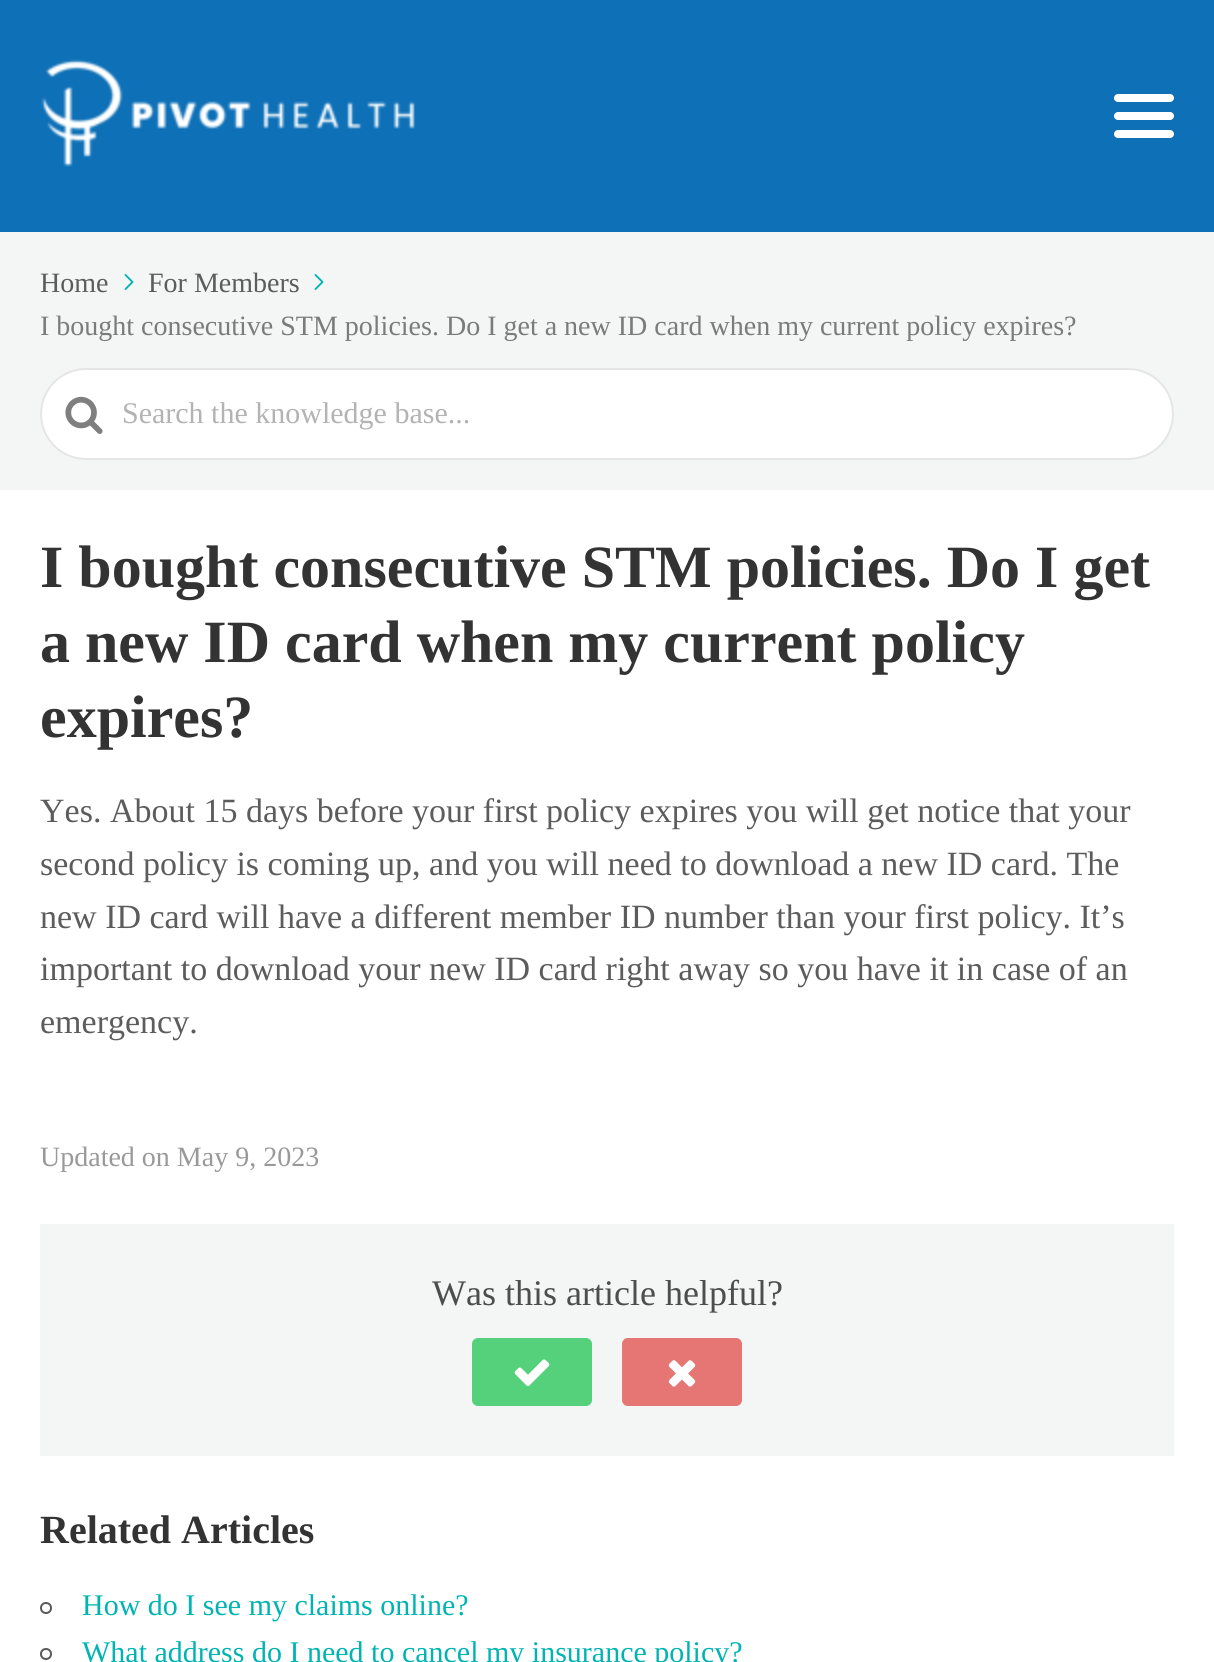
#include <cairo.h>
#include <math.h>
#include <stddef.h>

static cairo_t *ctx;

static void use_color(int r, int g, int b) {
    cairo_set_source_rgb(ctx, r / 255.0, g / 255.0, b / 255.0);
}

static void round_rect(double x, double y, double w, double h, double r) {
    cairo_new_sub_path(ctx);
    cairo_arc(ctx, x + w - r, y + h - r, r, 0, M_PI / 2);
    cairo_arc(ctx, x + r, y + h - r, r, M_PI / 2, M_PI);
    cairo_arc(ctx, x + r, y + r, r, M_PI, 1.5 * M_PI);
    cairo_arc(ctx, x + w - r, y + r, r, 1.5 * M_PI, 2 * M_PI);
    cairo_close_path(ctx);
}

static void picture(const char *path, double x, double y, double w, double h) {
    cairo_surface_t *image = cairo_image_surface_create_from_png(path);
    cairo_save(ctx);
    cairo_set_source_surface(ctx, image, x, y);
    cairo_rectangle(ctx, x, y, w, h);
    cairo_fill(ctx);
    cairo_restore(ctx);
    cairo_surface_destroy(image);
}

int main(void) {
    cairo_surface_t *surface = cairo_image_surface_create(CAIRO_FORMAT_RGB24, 1214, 1662);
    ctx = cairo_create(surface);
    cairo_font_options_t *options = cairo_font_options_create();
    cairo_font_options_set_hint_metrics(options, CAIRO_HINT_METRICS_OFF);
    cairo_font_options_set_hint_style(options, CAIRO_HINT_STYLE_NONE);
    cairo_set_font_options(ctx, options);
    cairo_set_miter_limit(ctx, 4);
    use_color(255, 255, 255);
    cairo_paint(ctx);
    use_color(14, 112, 183);
    cairo_rectangle(ctx, 0, 0, 1214, 232);
    cairo_fill(ctx);
    picture("img1.png", 41, 59, 374, 108);
    use_color(255, 255, 255);
    round_rect(1114, 112, 60, 8, 4);
    cairo_fill(ctx);
    round_rect(1114, 94, 60, 8, 4);
    cairo_fill(ctx);
    round_rect(1114, 130, 60, 8, 4);
    cairo_fill(ctx);
    use_color(244, 245, 245);
    cairo_rectangle(ctx, 0, 232, 1214, 258);
    cairo_fill(ctx);
    cairo_select_font_face(ctx, "Liberation Serif", CAIRO_FONT_SLANT_NORMAL, CAIRO_FONT_WEIGHT_NORMAL);
    cairo_set_font_size(ctx, 28);
    use_color(92, 92, 92);
    cairo_move_to(ctx, 40, 292);
    cairo_show_text(ctx, "Home");
    picture("img2.png", 124, 274, 10, 16);
    cairo_move_to(ctx, 148, 292);
    cairo_show_text(ctx, "For Members");
    picture("img2.png", 314, 274, 10, 16);
    use_color(122, 123, 123);
    cairo_move_to(ctx, 40, 335);
    cairo_show_text(ctx, "I bought consecutive STM policies. Do I get a new ID card when my current policy expires?");
    use_color(255, 255, 255);
    round_rect(40, 368, 1134, 92, 46);
    cairo_fill(ctx);
    round_rect(41, 369, 1132, 90, 45);
    cairo_set_source_rgba(ctx, 0.8, 0.8, 0.8, 0.5);
    cairo_stroke(ctx);
    picture("img3.png", 65, 396, 38, 38);
    cairo_set_font_size(ctx, 30);
    use_color(179, 179, 179);
    cairo_move_to(ctx, 122, 423);
    cairo_show_text(ctx, "Search the knowledge base...");
    cairo_select_font_face(ctx, "Liberation Serif", CAIRO_FONT_SLANT_NORMAL, CAIRO_FONT_WEIGHT_BOLD);
    cairo_set_font_size(ctx, 60);
    use_color(51, 51, 51);
    cairo_move_to(ctx, 40, 587);
    cairo_show_text(ctx, "I bought consecutive STM policies. Do I get");
    cairo_move_to(ctx, 40, 662);
    cairo_show_text(ctx, "a new ID card when my current policy");
    cairo_move_to(ctx, 40, 737);
    cairo_show_text(ctx, "expires?");
    cairo_select_font_face(ctx, "Liberation Serif", CAIRO_FONT_SLANT_NORMAL, CAIRO_FONT_WEIGHT_NORMAL);
    cairo_set_font_size(ctx, 34);
    use_color(92, 92, 92);
    cairo_move_to(ctx, 40, 822);
    cairo_show_text(ctx, "Yes. About 15 days before your first policy expires you will get notice that your");
    cairo_move_to(ctx, 40, 875);
    cairo_show_text(ctx, "second policy is coming up, and you will need to download a new ID card. The");
    cairo_move_to(ctx, 40, 928);
    cairo_show_text(ctx, "new ID card will have a different member ID number than your first policy. It’s");
    cairo_move_to(ctx, 40, 980);
    cairo_show_text(ctx, "important to download your new ID card right away so you have it in case of an");
    cairo_move_to(ctx, 40, 1033);
    cairo_show_text(ctx, "emergency.");
    cairo_set_font_size(ctx, 28);
    use_color(153, 153, 153);
    cairo_move_to(ctx, 40, 1166);
    cairo_show_text(ctx, "Updated on May 9, 2023");
    use_color(244, 245, 245);
    cairo_rectangle(ctx, 40, 1224, 1134, 232);
    cairo_fill(ctx);
    cairo_set_font_size(ctx, 36);
    use_color(77, 77, 77);
    cairo_move_to(ctx, 432, 1305);
    cairo_show_text(ctx, "Was this article helpful?");
    use_color(85, 209, 124);
    round_rect(472, 1338, 120, 68, 6);
    cairo_fill(ctx);
    picture("img4.png", 514, 1359, 36, 27);
    use_color(229, 118, 115);
    round_rect(622, 1338, 120, 68, 6);
    cairo_fill(ctx);
    picture("img5.png", 668, 1360, 28, 27);
    cairo_select_font_face(ctx, "Liberation Serif", CAIRO_FONT_SLANT_NORMAL, CAIRO_FONT_WEIGHT_BOLD);
    cairo_set_font_size(ctx, 40);
    use_color(51, 51, 51);
    cairo_move_to(ctx, 40, 1543);
    cairo_show_text(ctx, "Related Articles");
    cairo_new_path(ctx);
    cairo_arc(ctx, 46, 1608, 5, 0, 2 * M_PI);
    use_color(89, 89, 89);
    cairo_stroke(ctx);
    cairo_select_font_face(ctx, "Liberation Serif", CAIRO_FONT_SLANT_NORMAL, CAIRO_FONT_WEIGHT_NORMAL);
    cairo_set_font_size(ctx, 30);
    use_color(0, 180, 179);
    cairo_move_to(ctx, 82, 1615);
    cairo_show_text(ctx, "How do I see my claims online?");
    cairo_new_path(ctx);
    cairo_arc(ctx, 46, 1654, 5, 0, 2 * M_PI);
    use_color(89, 89, 89);
    cairo_stroke(ctx);
    use_color(0, 180, 179);
    cairo_move_to(ctx, 82, 1662);
    cairo_show_text(ctx, "What address do I need to cancel my insurance policy?");
    cairo_surface_write_to_png(surface, "result.png");
    cairo_font_options_destroy(options);
    cairo_destroy(ctx);
    cairo_surface_destroy(surface);
    return 0;
}
